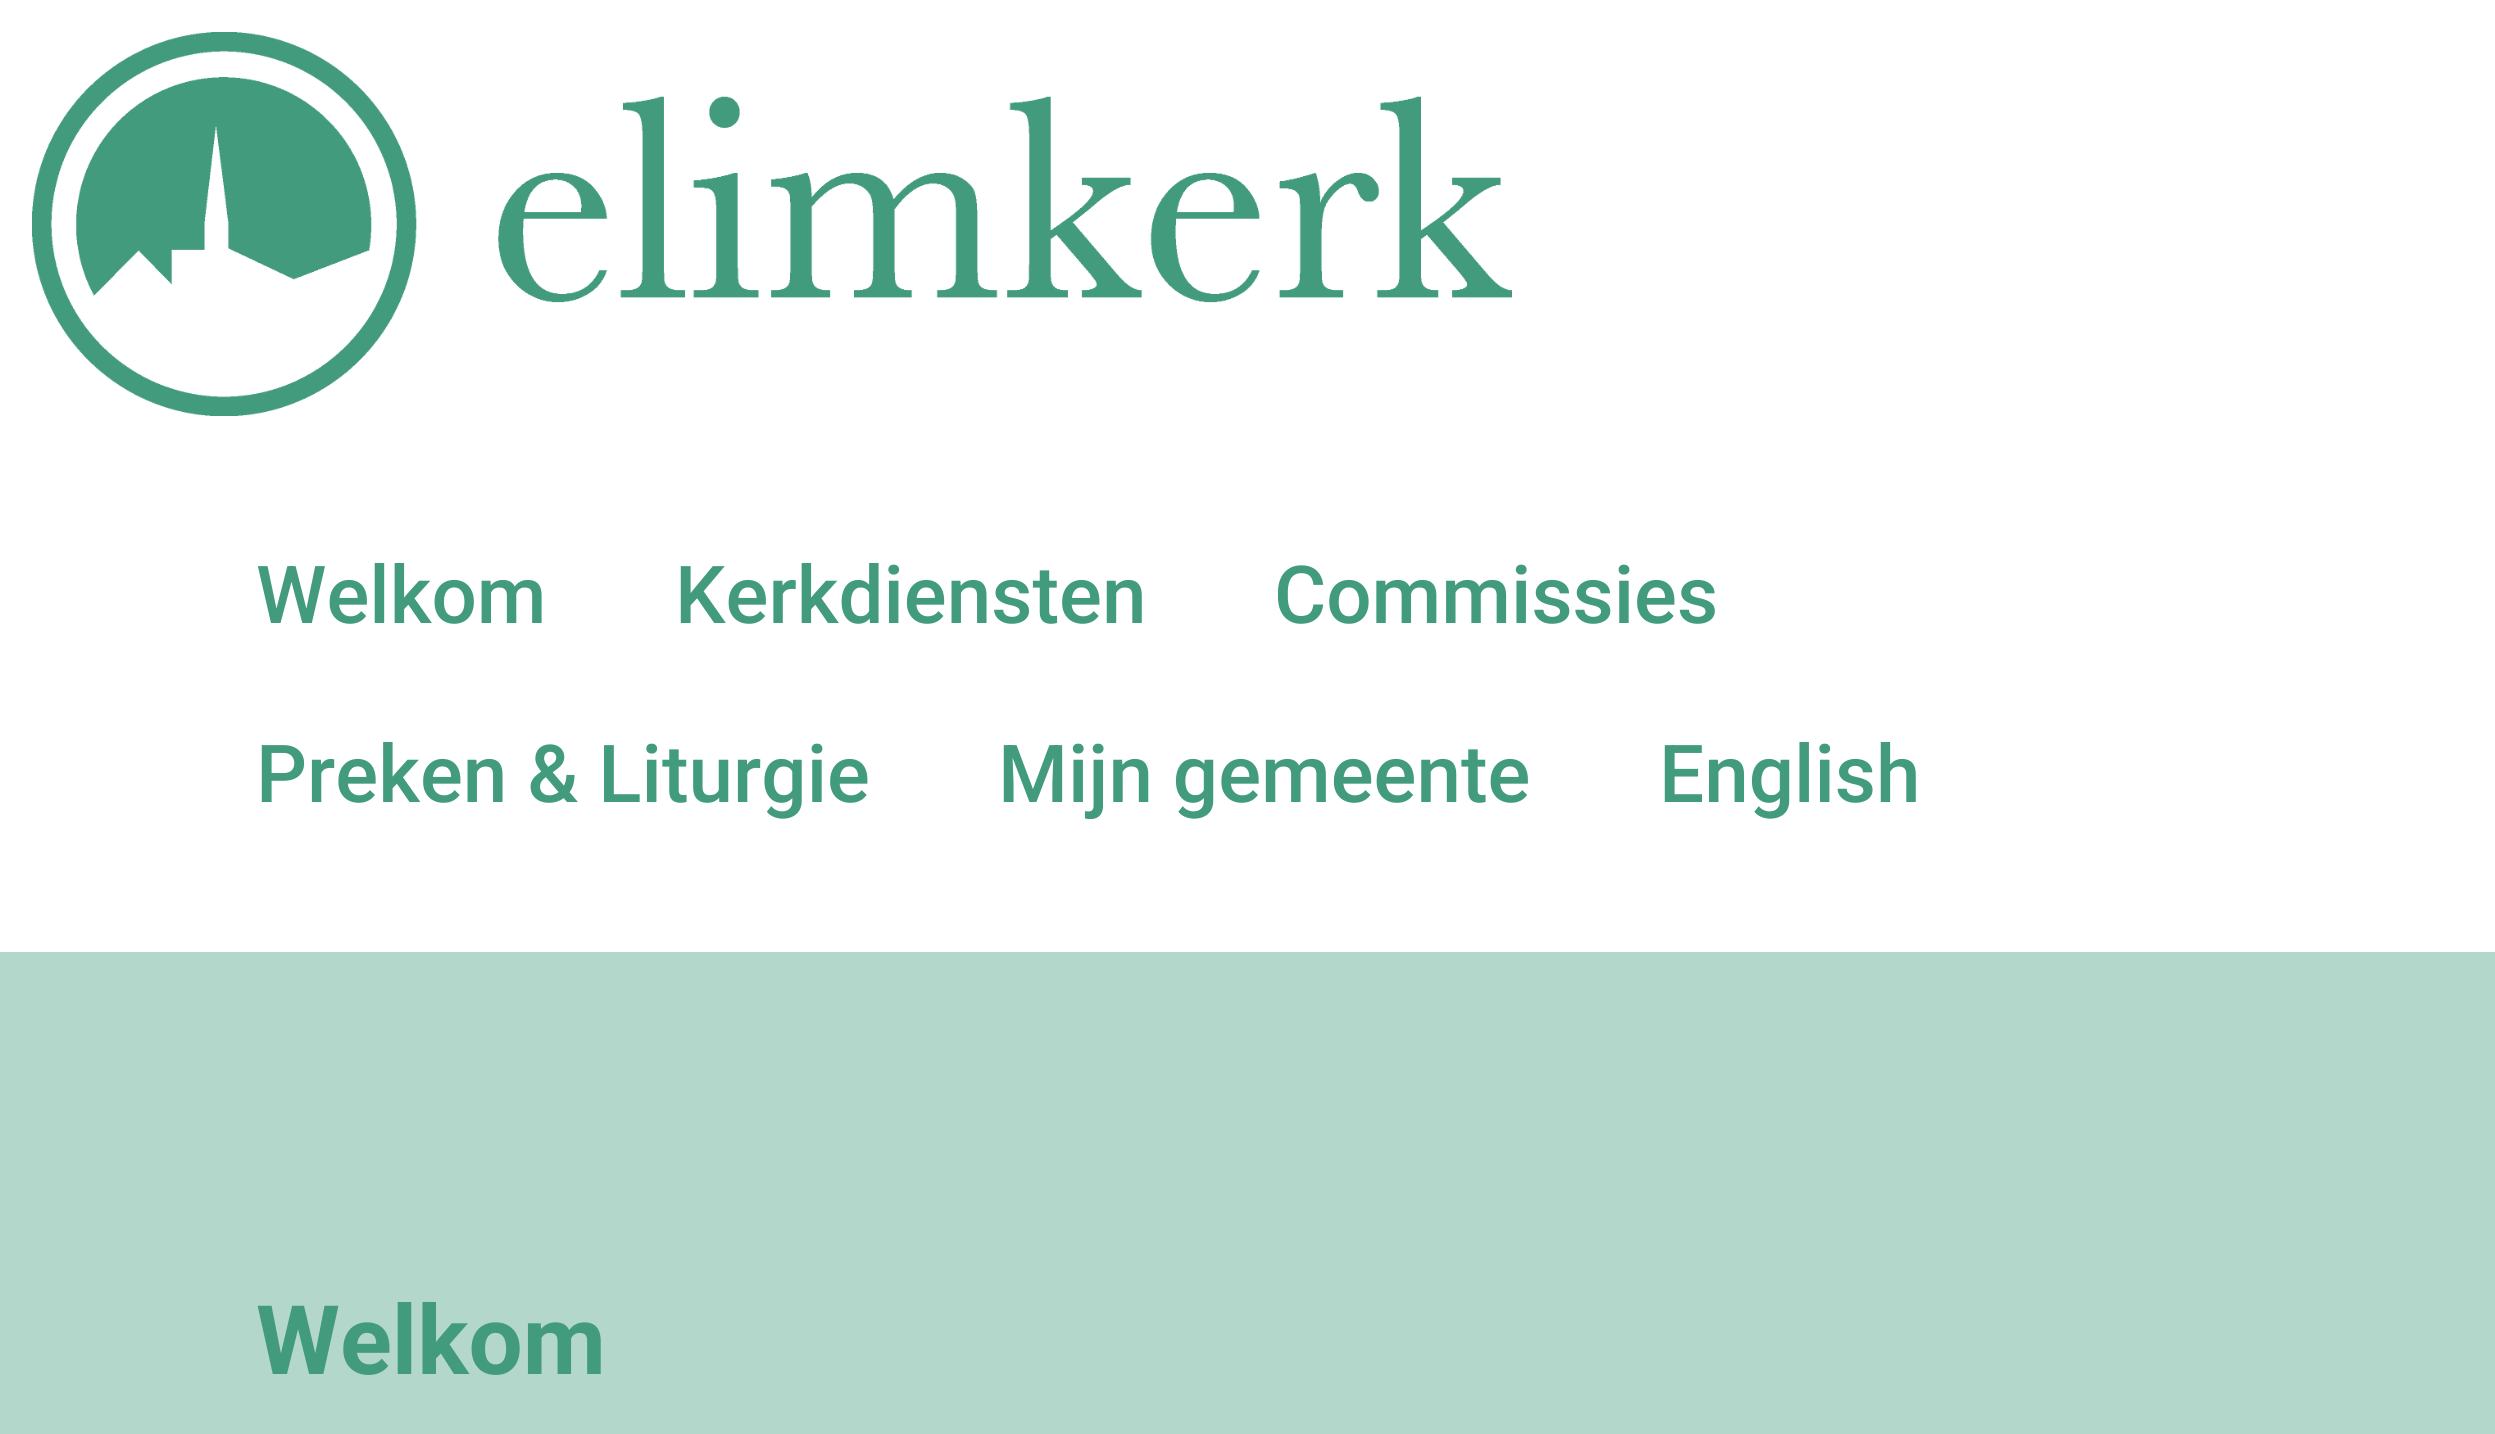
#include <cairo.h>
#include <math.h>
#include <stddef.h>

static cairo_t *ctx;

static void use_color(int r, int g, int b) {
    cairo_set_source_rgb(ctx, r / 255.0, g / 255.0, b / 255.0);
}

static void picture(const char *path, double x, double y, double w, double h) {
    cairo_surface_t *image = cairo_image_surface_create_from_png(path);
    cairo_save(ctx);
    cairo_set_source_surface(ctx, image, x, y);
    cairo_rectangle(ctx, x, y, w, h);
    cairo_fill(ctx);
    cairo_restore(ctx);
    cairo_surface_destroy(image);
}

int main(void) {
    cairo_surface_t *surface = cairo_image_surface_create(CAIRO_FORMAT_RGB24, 2495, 1434);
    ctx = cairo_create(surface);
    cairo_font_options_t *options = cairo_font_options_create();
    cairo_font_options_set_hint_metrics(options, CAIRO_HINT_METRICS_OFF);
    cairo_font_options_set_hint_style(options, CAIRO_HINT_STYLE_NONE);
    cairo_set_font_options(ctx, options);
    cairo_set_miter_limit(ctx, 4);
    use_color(255, 255, 255);
    cairo_paint(ctx);
    picture("img1.png", 32, 32, 1480, 384);
    cairo_select_font_face(ctx, "Roboto Medium", CAIRO_FONT_SLANT_NORMAL, CAIRO_FONT_WEIGHT_NORMAL);
    cairo_set_font_size(ctx, 80);
    use_color(67, 155, 126);
    cairo_move_to(ctx, 256, 623);
    cairo_show_text(ctx, "Welkom");
    cairo_move_to(ctx, 675, 623);
    cairo_show_text(ctx, "Kerkdiensten");
    cairo_move_to(ctx, 1274, 623);
    cairo_show_text(ctx, "Commissies");
    cairo_move_to(ctx, 256, 802);
    cairo_show_text(ctx, "Preken & Liturgie");
    cairo_move_to(ctx, 998, 802);
    cairo_show_text(ctx, "Mijn gemeente");
    cairo_move_to(ctx, 1659, 802);
    cairo_show_text(ctx, "English");
    use_color(180, 215, 203);
    cairo_rectangle(ctx, 0, 952, 2495, 482);
    cairo_fill(ctx);
    cairo_select_font_face(ctx, "Roboto", CAIRO_FONT_SLANT_NORMAL, CAIRO_FONT_WEIGHT_BOLD);
    cairo_set_font_size(ctx, 96);
    use_color(67, 155, 126);
    cairo_move_to(ctx, 256, 1374);
    cairo_show_text(ctx, "Welkom");
    cairo_surface_write_to_png(surface, "result.png");
    cairo_font_options_destroy(options);
    cairo_destroy(ctx);
    cairo_surface_destroy(surface);
    return 0;
}
